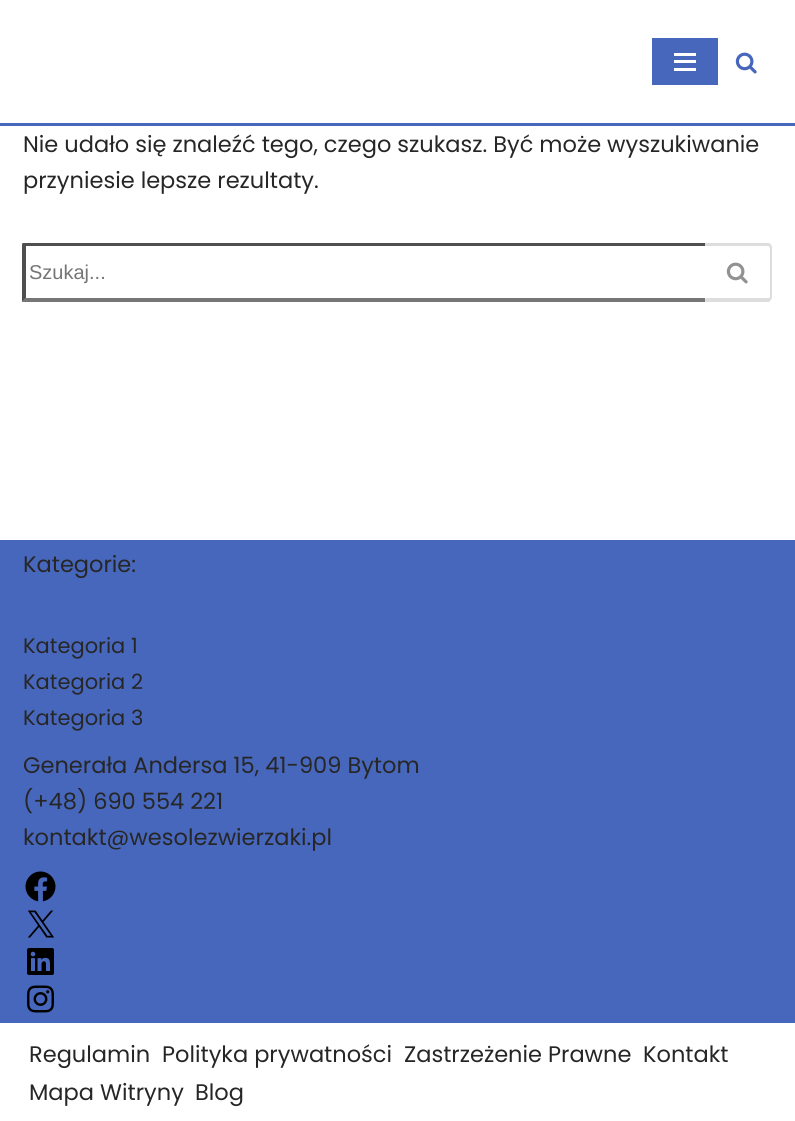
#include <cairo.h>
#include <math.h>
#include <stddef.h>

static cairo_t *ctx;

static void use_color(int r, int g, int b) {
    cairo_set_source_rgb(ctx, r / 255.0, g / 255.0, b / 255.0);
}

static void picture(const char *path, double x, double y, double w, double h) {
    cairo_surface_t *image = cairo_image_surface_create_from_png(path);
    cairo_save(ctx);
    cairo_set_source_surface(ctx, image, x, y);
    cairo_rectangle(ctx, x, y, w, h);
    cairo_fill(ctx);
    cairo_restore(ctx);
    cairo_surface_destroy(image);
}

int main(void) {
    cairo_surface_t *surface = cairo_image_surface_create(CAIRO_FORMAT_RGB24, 795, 1121);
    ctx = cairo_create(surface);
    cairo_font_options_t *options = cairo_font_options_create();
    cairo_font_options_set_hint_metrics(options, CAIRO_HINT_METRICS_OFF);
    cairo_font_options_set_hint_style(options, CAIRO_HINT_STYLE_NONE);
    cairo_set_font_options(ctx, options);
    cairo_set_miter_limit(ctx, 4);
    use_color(255, 255, 255);
    cairo_paint(ctx);
    use_color(71, 103, 189);
    cairo_rectangle(ctx, 0, 123, 795, 3);
    cairo_fill(ctx);
    cairo_rectangle(ctx, 652, 38, 66, 47);
    cairo_fill(ctx);
    use_color(255, 255, 255);
    cairo_rectangle(ctx, 674, 53, 22, 3);
    cairo_fill(ctx);
    cairo_rectangle(ctx, 674, 60, 22, 3);
    cairo_fill(ctx);
    cairo_rectangle(ctx, 674, 68, 22, 3);
    cairo_fill(ctx);
    picture("img1.png", 735, 52, 22, 22);
    cairo_select_font_face(ctx, "Poppins", CAIRO_FONT_SLANT_NORMAL, CAIRO_FONT_WEIGHT_NORMAL);
    cairo_set_font_size(ctx, 22.5);
    use_color(39, 38, 38);
    cairo_move_to(ctx, 23, 152);
    cairo_show_text(ctx, "Nie udało się znaleźć tego, czego szukasz. Być może wyszukiwanie");
    cairo_move_to(ctx, 23, 188);
    cairo_show_text(ctx, "przyniesie lepsze rezultaty.");
    use_color(79, 79, 79);
    cairo_rectangle(ctx, 23, 243, 682, 3);
    cairo_fill(ctx);
    use_color(118, 118, 118);
    cairo_new_path(ctx);
    cairo_move_to(ctx, 705, 302);
    cairo_line_to(ctx, 22, 302);
    cairo_line_to(ctx, 26, 298);
    cairo_line_to(ctx, 705, 298);
    cairo_close_path(ctx);
    cairo_fill(ctx);
    use_color(79, 79, 79);
    cairo_new_path(ctx);
    cairo_move_to(ctx, 22, 302);
    cairo_line_to(ctx, 22, 243);
    cairo_line_to(ctx, 26, 246);
    cairo_line_to(ctx, 26, 298);
    cairo_close_path(ctx);
    cairo_fill(ctx);
    cairo_select_font_face(ctx, "Liberation Sans", CAIRO_FONT_SLANT_NORMAL, CAIRO_FONT_WEIGHT_NORMAL);
    cairo_set_font_size(ctx, 20);
    use_color(117, 117, 117);
    cairo_move_to(ctx, 29, 279);
    cairo_show_text(ctx, "Szukaj...");
    use_color(221, 221, 221);
    cairo_set_fill_rule(ctx, CAIRO_FILL_RULE_EVEN_ODD);
    cairo_new_path(ctx);
    cairo_move_to(ctx, 705, 243);
    cairo_line_to(ctx, 768, 243);
    cairo_curve_to(ctx, 770, 243, 772, 245, 772, 248);
    cairo_line_to(ctx, 772, 297);
    cairo_curve_to(ctx, 772, 299, 770, 302, 768, 302);
    cairo_line_to(ctx, 705, 302);
    cairo_close_path(ctx);
    cairo_move_to(ctx, 705, 246);
    cairo_line_to(ctx, 768, 246);
    cairo_curve_to(ctx, 769, 246, 770, 247, 770, 248);
    cairo_line_to(ctx, 770, 297);
    cairo_curve_to(ctx, 770, 298, 769, 298, 768, 298);
    cairo_line_to(ctx, 705, 298);
    cairo_close_path(ctx);
    cairo_fill(ctx);
    picture("img2.png", 726, 262, 22, 22);
    use_color(255, 255, 255);
    cairo_rectangle(ctx, 705, 298, 1, 1);
    cairo_fill(ctx);
    use_color(71, 103, 189);
    cairo_rectangle(ctx, 0, 540, 795, 483);
    cairo_fill(ctx);
    cairo_select_font_face(ctx, "Poppins", CAIRO_FONT_SLANT_NORMAL, CAIRO_FONT_WEIGHT_NORMAL);
    cairo_set_font_size(ctx, 22.5);
    use_color(39, 38, 38);
    cairo_move_to(ctx, 23, 572);
    cairo_show_text(ctx, "Kategorie:");
    cairo_set_font_size(ctx, 21);
    cairo_move_to(ctx, 23, 653);
    cairo_show_text(ctx, "Kategoria 1");
    cairo_move_to(ctx, 23, 689);
    cairo_show_text(ctx, "Kategoria 2");
    cairo_move_to(ctx, 23, 725);
    cairo_show_text(ctx, "Kategoria 3");
    cairo_set_font_size(ctx, 22.5);
    cairo_move_to(ctx, 23, 773);
    cairo_show_text(ctx, "Generała Andersa 15, 41-909 Bytom");
    cairo_move_to(ctx, 23, 809);
    cairo_show_text(ctx, "(+48) 690 554 221");
    cairo_move_to(ctx, 23, 845);
    cairo_show_text(ctx, "kontakt@wesolezwierzaki.pl");
    picture("img3.png", 25, 871, 31, 31);
    picture("img4.png", 27, 910, 28, 28);
    picture("img5.png", 27, 948, 27, 27);
    picture("img6.png", 27, 985, 27, 28);
    cairo_move_to(ctx, 29, 1062);
    cairo_show_text(ctx, "Regulamin");
    cairo_move_to(ctx, 162, 1062);
    cairo_show_text(ctx, "Polityka prywatności");
    cairo_move_to(ctx, 404, 1062);
    cairo_show_text(ctx, "Zastrzeżenie Prawne");
    cairo_move_to(ctx, 643, 1062);
    cairo_show_text(ctx, "Kontakt");
    cairo_move_to(ctx, 29, 1100);
    cairo_show_text(ctx, "Mapa Witryny");
    cairo_move_to(ctx, 195, 1100);
    cairo_show_text(ctx, "Blog");
    cairo_surface_write_to_png(surface, "result.png");
    cairo_font_options_destroy(options);
    cairo_destroy(ctx);
    cairo_surface_destroy(surface);
    return 0;
}
